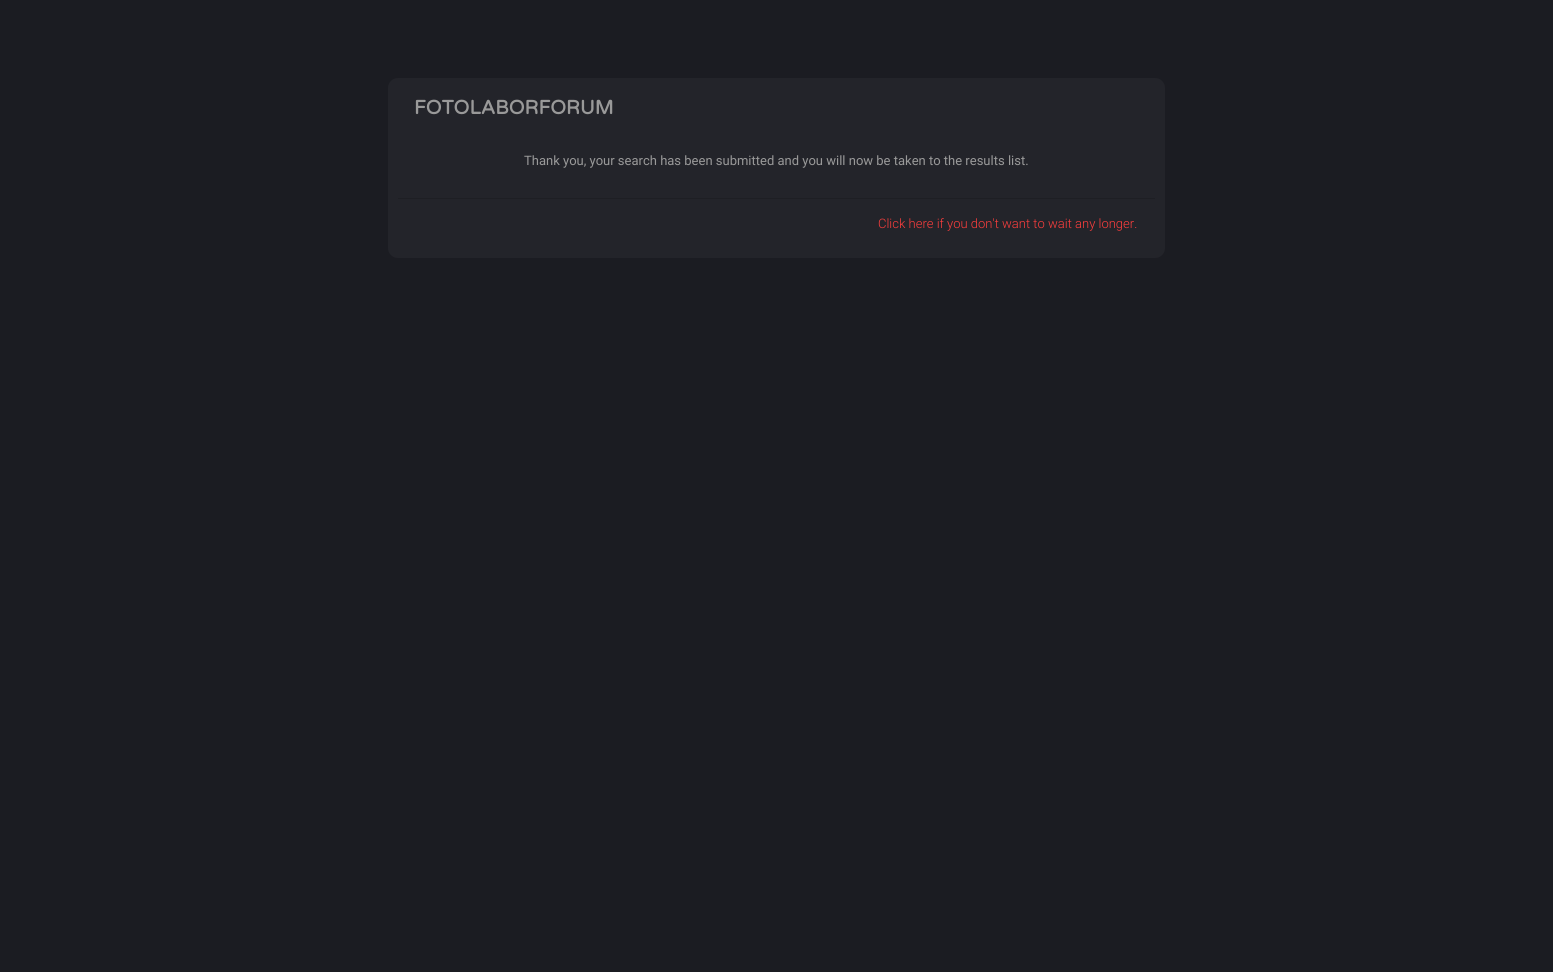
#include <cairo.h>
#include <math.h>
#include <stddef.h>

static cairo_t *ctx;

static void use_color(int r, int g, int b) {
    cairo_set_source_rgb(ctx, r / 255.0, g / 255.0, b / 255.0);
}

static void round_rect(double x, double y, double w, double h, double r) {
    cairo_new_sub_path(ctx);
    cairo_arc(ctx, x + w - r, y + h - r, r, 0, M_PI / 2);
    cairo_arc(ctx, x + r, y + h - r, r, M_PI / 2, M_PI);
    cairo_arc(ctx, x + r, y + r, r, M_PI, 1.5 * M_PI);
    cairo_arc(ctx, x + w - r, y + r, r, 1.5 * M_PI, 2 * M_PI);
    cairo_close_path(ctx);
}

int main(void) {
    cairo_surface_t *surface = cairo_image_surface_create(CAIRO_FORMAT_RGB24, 1553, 972);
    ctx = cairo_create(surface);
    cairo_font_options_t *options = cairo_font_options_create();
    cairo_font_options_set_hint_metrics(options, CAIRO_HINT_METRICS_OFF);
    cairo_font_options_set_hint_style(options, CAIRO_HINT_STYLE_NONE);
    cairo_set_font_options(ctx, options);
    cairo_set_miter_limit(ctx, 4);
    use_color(27, 28, 34);
    cairo_paint(ctx);
    use_color(35, 36, 42);
    round_rect(388, 78, 777, 180, 10);
    cairo_fill(ctx);
    cairo_select_font_face(ctx, "Varela Round", CAIRO_FONT_SLANT_NORMAL, CAIRO_FONT_WEIGHT_BOLD);
    cairo_set_font_size(ctx, 19.5);
    use_color(153, 153, 153);
    cairo_move_to(ctx, 414, 114);
    cairo_show_text(ctx, "FOTOLABORFORUM");
    use_color(30, 31, 36);
    cairo_rectangle(ctx, 398, 198, 757, 1);
    cairo_fill(ctx);
    cairo_select_font_face(ctx, "Roboto", CAIRO_FONT_SLANT_NORMAL, CAIRO_FONT_WEIGHT_NORMAL);
    cairo_set_font_size(ctx, 13);
    use_color(153, 153, 153);
    cairo_move_to(ctx, 524, 165);
    cairo_show_text(ctx, "Thank you, your search has been submitted and you will now be taken to the results list.");
    cairo_select_font_face(ctx, "Roboto Light", CAIRO_FONT_SLANT_NORMAL, CAIRO_FONT_WEIGHT_NORMAL);
    use_color(254, 62, 61);
    cairo_move_to(ctx, 878, 228);
    cairo_show_text(ctx, "Click here if you don't want to wait any longer.");
    cairo_surface_write_to_png(surface, "result.png");
    cairo_font_options_destroy(options);
    cairo_destroy(ctx);
    cairo_surface_destroy(surface);
    return 0;
}
